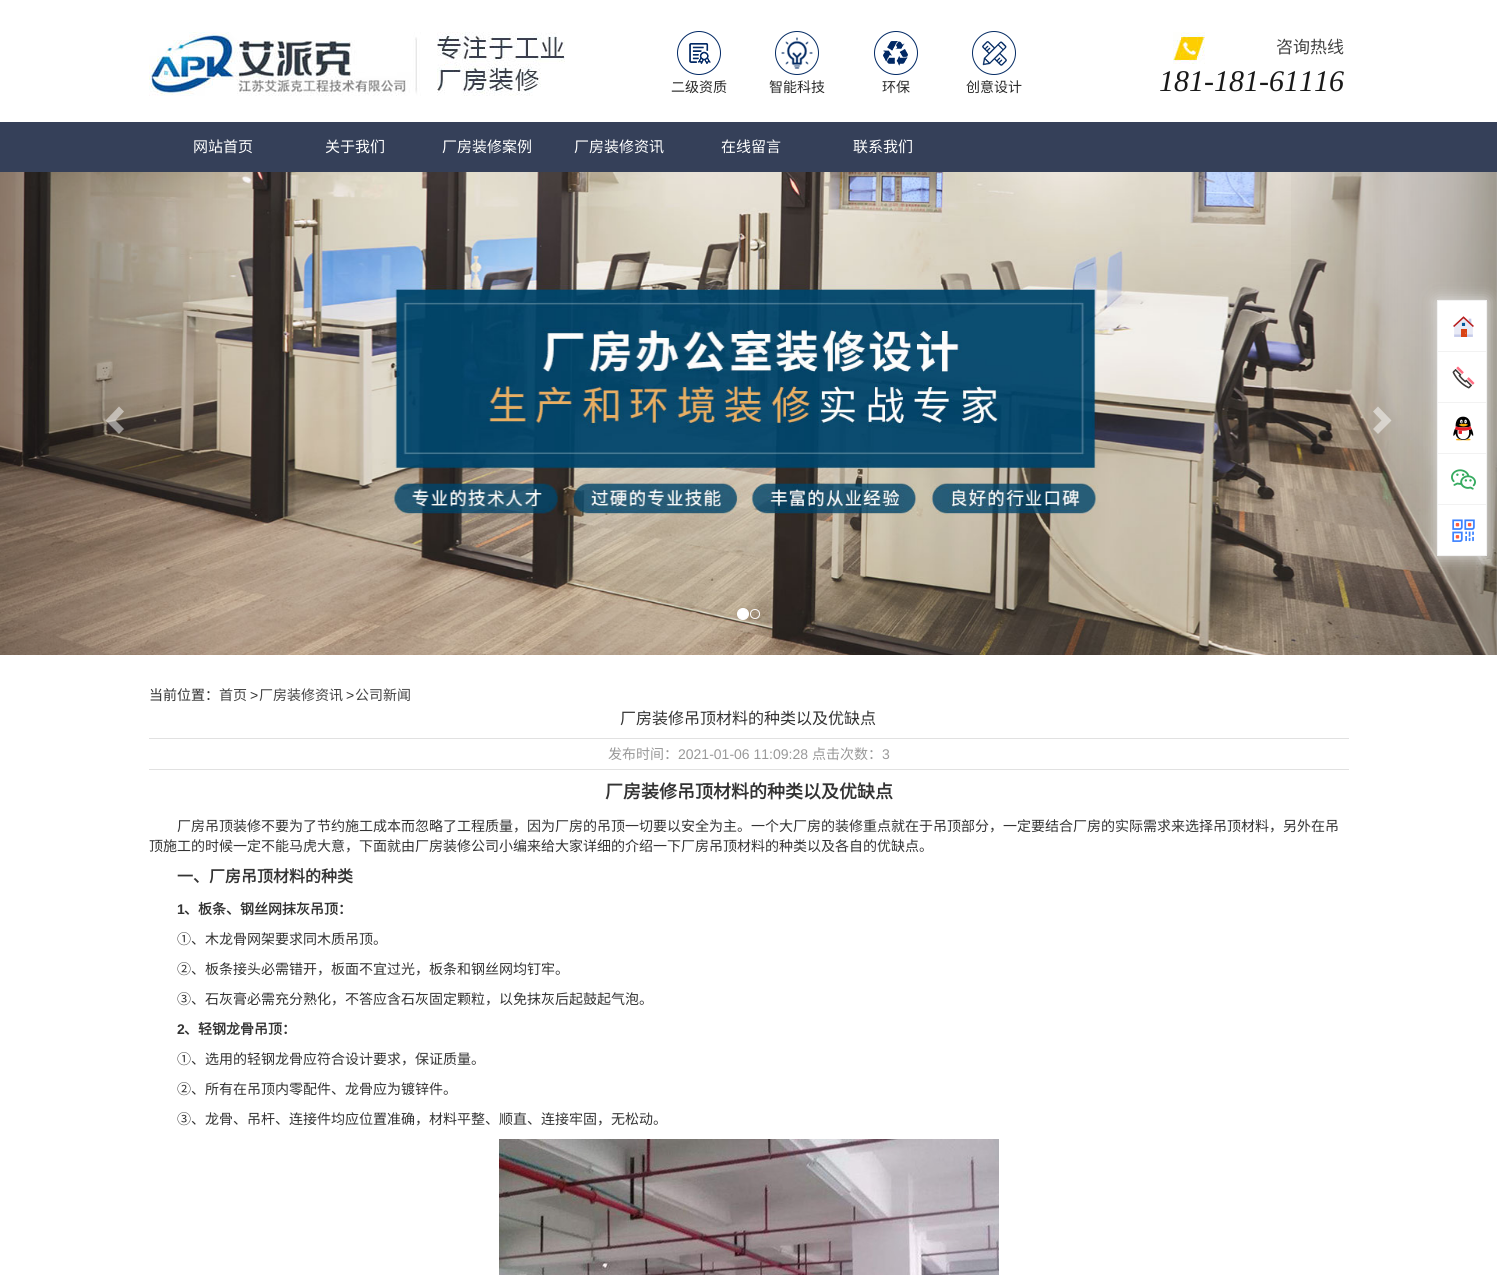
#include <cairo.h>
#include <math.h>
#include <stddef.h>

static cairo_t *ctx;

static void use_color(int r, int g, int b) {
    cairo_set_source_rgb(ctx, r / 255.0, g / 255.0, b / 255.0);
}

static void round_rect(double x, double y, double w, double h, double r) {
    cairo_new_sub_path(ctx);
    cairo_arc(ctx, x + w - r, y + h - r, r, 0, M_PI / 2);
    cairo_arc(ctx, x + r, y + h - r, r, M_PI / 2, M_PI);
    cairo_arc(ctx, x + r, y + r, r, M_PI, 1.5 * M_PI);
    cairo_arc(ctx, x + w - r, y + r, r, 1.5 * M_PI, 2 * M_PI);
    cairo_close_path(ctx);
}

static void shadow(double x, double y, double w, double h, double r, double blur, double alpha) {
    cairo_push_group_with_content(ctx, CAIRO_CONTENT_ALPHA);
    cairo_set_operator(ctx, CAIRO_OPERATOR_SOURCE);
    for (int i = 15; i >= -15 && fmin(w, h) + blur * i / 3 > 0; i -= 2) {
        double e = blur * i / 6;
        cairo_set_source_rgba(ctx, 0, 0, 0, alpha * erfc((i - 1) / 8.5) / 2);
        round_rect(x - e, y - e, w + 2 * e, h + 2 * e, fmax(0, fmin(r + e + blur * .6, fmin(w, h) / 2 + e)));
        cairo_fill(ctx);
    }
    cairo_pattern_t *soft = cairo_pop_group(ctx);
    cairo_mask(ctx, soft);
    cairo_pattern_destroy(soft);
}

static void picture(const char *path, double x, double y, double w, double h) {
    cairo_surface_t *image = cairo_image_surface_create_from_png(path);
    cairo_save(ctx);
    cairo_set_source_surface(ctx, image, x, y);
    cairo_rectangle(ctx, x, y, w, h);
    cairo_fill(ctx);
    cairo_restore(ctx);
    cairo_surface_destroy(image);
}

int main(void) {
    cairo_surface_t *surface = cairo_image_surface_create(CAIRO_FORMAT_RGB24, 1497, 1275);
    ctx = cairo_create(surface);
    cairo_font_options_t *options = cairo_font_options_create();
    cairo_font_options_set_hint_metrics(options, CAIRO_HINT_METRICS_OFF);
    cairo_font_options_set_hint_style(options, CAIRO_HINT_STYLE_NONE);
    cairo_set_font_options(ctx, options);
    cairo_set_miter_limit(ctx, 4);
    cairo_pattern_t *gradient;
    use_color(255, 255, 255);
    cairo_paint(ctx);
    picture("img1.png", 149, 32, 1056, 64);
    picture("img2.png", 677, 31, 44, 44);
    cairo_select_font_face(ctx, "Noto Sans CJK SC", CAIRO_FONT_SLANT_NORMAL, CAIRO_FONT_WEIGHT_NORMAL);
    cairo_set_font_size(ctx, 14);
    use_color(41, 41, 41);
    cairo_move_to(ctx, 671, 92);
    cairo_show_text(ctx, "二级资质");
    picture("img3.png", 775, 31, 44, 44);
    cairo_move_to(ctx, 769, 92);
    cairo_show_text(ctx, "智能科技");
    picture("img4.png", 874, 31, 44, 44);
    cairo_move_to(ctx, 882, 92);
    cairo_show_text(ctx, "环保");
    picture("img5.png", 972, 31, 44, 44);
    cairo_move_to(ctx, 966, 92);
    cairo_show_text(ctx, "创意设计");
    cairo_set_font_size(ctx, 17);
    use_color(67, 67, 67);
    cairo_move_to(ctx, 1276, 53);
    cairo_show_text(ctx, "咨询热线");
    cairo_select_font_face(ctx, "Liberation Serif", CAIRO_FONT_SLANT_ITALIC, CAIRO_FONT_WEIGHT_NORMAL);
    cairo_set_font_size(ctx, 30);
    use_color(25, 25, 25);
    cairo_move_to(ctx, 1159, 91);
    cairo_show_text(ctx, "181-181-61116");
    use_color(53, 64, 89);
    cairo_rectangle(ctx, 0, 122, 1497, 50);
    cairo_fill(ctx);
    cairo_select_font_face(ctx, "Noto Sans CJK SC", CAIRO_FONT_SLANT_NORMAL, CAIRO_FONT_WEIGHT_NORMAL);
    cairo_set_font_size(ctx, 15);
    use_color(255, 255, 255);
    cairo_move_to(ctx, 193, 152);
    cairo_show_text(ctx, "网站首页");
    cairo_move_to(ctx, 325, 152);
    cairo_show_text(ctx, "关于我们");
    cairo_move_to(ctx, 442, 152);
    cairo_show_text(ctx, "厂房装修案例");
    cairo_move_to(ctx, 574, 152);
    cairo_show_text(ctx, "厂房装修资讯");
    cairo_move_to(ctx, 721, 152);
    cairo_show_text(ctx, "在线留言");
    cairo_move_to(ctx, 853, 152);
    cairo_show_text(ctx, "联系我们");
    picture("img6.png", 0, 172, 1497, 483);
    cairo_set_source_rgba(ctx, 1, 1, 1, 0.5);
    cairo_new_path(ctx);
    cairo_move_to(ctx, 124, 411.5);
    cairo_line_to(ctx, 115.5, 420.5);
    cairo_line_to(ctx, 124, 429);
    cairo_line_to(ctx, 119, 434);
    cairo_line_to(ctx, 105.5, 420.5);
    cairo_line_to(ctx, 119, 406.5);
    cairo_close_path(ctx);
    cairo_fill(ctx);
    gradient = cairo_pattern_create_linear(1272, 414, 1497, 414);
    cairo_pattern_add_color_stop_rgba(gradient, 0, 0, 0, 0, 0);
    cairo_pattern_add_color_stop_rgba(gradient, 1, 0, 0, 0, 0.25);
    cairo_set_source(ctx, gradient);
    cairo_pattern_destroy(gradient);
    cairo_rectangle(ctx, 1291, 172, 206, 483);
    cairo_fill(ctx);
    cairo_set_source_rgba(ctx, 1, 1, 1, 0.5);
    cairo_new_path(ctx);
    cairo_move_to(ctx, 1391.5, 420.5);
    cairo_line_to(ctx, 1378, 434);
    cairo_line_to(ctx, 1373, 429);
    cairo_line_to(ctx, 1381.5, 420.5);
    cairo_line_to(ctx, 1373, 411.5);
    cairo_line_to(ctx, 1378, 406.5);
    cairo_close_path(ctx);
    cairo_fill(ctx);
    use_color(255, 255, 255);
    cairo_arc(ctx, 743, 614, 5.5, 0, 2 * M_PI);
    cairo_fill_preserve(ctx);
    cairo_set_line_width(ctx, 1);
    cairo_stroke(ctx);
    cairo_arc(ctx, 755, 614, 4.5, 0, 2 * M_PI);
    cairo_stroke(ctx);
    use_color(228, 228, 228);
    shadow(1437, 300, 50, 256, 0, 7.5, 1);
    use_color(255, 255, 255);
    cairo_rectangle(ctx, 1437.5, 300.5, 49, 255);
    cairo_fill_preserve(ctx);
    use_color(242, 242, 242);
    cairo_stroke(ctx);
    cairo_rectangle(ctx, 1438, 351, 48, 1);
    cairo_fill(ctx);
    picture("img7.png", 1453, 316, 21, 21);
    cairo_rectangle(ctx, 1438, 402, 48, 1);
    cairo_fill(ctx);
    picture("img8.png", 1452, 366, 23, 23);
    cairo_rectangle(ctx, 1438, 453, 48, 1);
    cairo_fill(ctx);
    picture("img9.png", 1453, 416, 21, 25);
    cairo_rectangle(ctx, 1438, 504, 48, 1);
    cairo_fill(ctx);
    picture("img10.png", 1451, 469, 25, 21);
    picture("img11.png", 1452, 519, 23, 23);
    cairo_set_font_size(ctx, 14);
    use_color(51, 51, 51);
    cairo_move_to(ctx, 149, 700);
    cairo_show_text(ctx, "当前位置：");
    use_color(67, 67, 67);
    cairo_move_to(ctx, 219, 700);
    cairo_show_text(ctx, "首页");
    cairo_select_font_face(ctx, "Liberation Sans", CAIRO_FONT_SLANT_NORMAL, CAIRO_FONT_WEIGHT_NORMAL);
    use_color(51, 51, 51);
    cairo_move_to(ctx, 250, 700);
    cairo_show_text(ctx, ">");
    cairo_select_font_face(ctx, "Noto Sans CJK SC", CAIRO_FONT_SLANT_NORMAL, CAIRO_FONT_WEIGHT_NORMAL);
    use_color(67, 67, 67);
    cairo_move_to(ctx, 259, 700);
    cairo_show_text(ctx, "厂房装修资讯");
    cairo_select_font_face(ctx, "Liberation Sans", CAIRO_FONT_SLANT_NORMAL, CAIRO_FONT_WEIGHT_NORMAL);
    use_color(51, 51, 51);
    cairo_move_to(ctx, 346, 700);
    cairo_show_text(ctx, ">");
    cairo_select_font_face(ctx, "Noto Sans CJK SC", CAIRO_FONT_SLANT_NORMAL, CAIRO_FONT_WEIGHT_NORMAL);
    use_color(67, 67, 67);
    cairo_move_to(ctx, 355, 700);
    cairo_show_text(ctx, "公司新闻");
    cairo_set_font_size(ctx, 16);
    use_color(51, 51, 51);
    cairo_move_to(ctx, 620, 724);
    cairo_show_text(ctx, "厂房装修吊顶材料的种类以及优缺点");
    use_color(225, 225, 225);
    cairo_rectangle(ctx, 149, 738, 1200, 1);
    cairo_fill(ctx);
    cairo_rectangle(ctx, 149, 769, 1200, 1);
    cairo_fill(ctx);
    cairo_set_font_size(ctx, 14);
    use_color(153, 153, 153);
    cairo_move_to(ctx, 608, 759);
    cairo_show_text(ctx, "发布时间：");
    cairo_select_font_face(ctx, "Liberation Sans", CAIRO_FONT_SLANT_NORMAL, CAIRO_FONT_WEIGHT_NORMAL);
    cairo_move_to(ctx, 678, 759);
    cairo_show_text(ctx, "2021-01-06 11:09:28");
    cairo_select_font_face(ctx, "Noto Sans CJK SC", CAIRO_FONT_SLANT_NORMAL, CAIRO_FONT_WEIGHT_NORMAL);
    cairo_move_to(ctx, 812, 759);
    cairo_show_text(ctx, "点击次数：");
    cairo_select_font_face(ctx, "Liberation Sans", CAIRO_FONT_SLANT_NORMAL, CAIRO_FONT_WEIGHT_NORMAL);
    cairo_move_to(ctx, 882, 759);
    cairo_show_text(ctx, "3");
    cairo_select_font_face(ctx, "Noto Sans CJK SC", CAIRO_FONT_SLANT_NORMAL, CAIRO_FONT_WEIGHT_BOLD);
    cairo_set_font_size(ctx, 18);
    use_color(51, 51, 51);
    cairo_move_to(ctx, 605, 798);
    cairo_show_text(ctx, "厂房装修吊顶材料的种类以及优缺点");
    cairo_select_font_face(ctx, "Noto Sans CJK SC", CAIRO_FONT_SLANT_NORMAL, CAIRO_FONT_WEIGHT_NORMAL);
    cairo_set_font_size(ctx, 14);
    cairo_move_to(ctx, 177, 831);
    cairo_show_text(ctx, "厂房吊顶装修不要为了节约施工成本而忽略了工程质量，因为厂房的吊顶一切要以安全为主。一个大厂房的装修重点就在于吊顶部分，一定要结合厂房的实际需求来选择吊顶材料，另外在吊");
    cairo_move_to(ctx, 149, 851);
    cairo_show_text(ctx, "顶施工的时候一定不能马虎大意，下面就由厂房装修公司小编来给大家详细的介绍一下厂房吊顶材料的种类以及各自的优缺点。");
    cairo_select_font_face(ctx, "Noto Sans CJK SC", CAIRO_FONT_SLANT_NORMAL, CAIRO_FONT_WEIGHT_BOLD);
    cairo_set_font_size(ctx, 16);
    cairo_move_to(ctx, 177, 882);
    cairo_show_text(ctx, "一、厂房吊顶材料的种类");
    cairo_select_font_face(ctx, "Liberation Sans", CAIRO_FONT_SLANT_NORMAL, CAIRO_FONT_WEIGHT_BOLD);
    cairo_set_font_size(ctx, 14);
    cairo_move_to(ctx, 177, 914);
    cairo_show_text(ctx, "1");
    cairo_select_font_face(ctx, "Noto Sans CJK SC", CAIRO_FONT_SLANT_NORMAL, CAIRO_FONT_WEIGHT_BOLD);
    cairo_move_to(ctx, 184, 914);
    cairo_show_text(ctx, "、板条、钢丝网抹灰吊顶：");
    cairo_select_font_face(ctx, "Noto Sans CJK SC", CAIRO_FONT_SLANT_NORMAL, CAIRO_FONT_WEIGHT_NORMAL);
    cairo_move_to(ctx, 177, 944);
    cairo_show_text(ctx, "①、木龙骨网架要求同木质吊顶。");
    cairo_move_to(ctx, 177, 974);
    cairo_show_text(ctx, "②、板条接头必需错开，板面不宜过光，板条和钢丝网均钉牢。");
    cairo_move_to(ctx, 177, 1004);
    cairo_show_text(ctx, "③、石灰膏必需充分熟化，不答应含石灰固定颗粒，以免抹灰后起鼓起气泡。");
    cairo_select_font_face(ctx, "Liberation Sans", CAIRO_FONT_SLANT_NORMAL, CAIRO_FONT_WEIGHT_BOLD);
    cairo_move_to(ctx, 177, 1034);
    cairo_show_text(ctx, "2");
    cairo_select_font_face(ctx, "Noto Sans CJK SC", CAIRO_FONT_SLANT_NORMAL, CAIRO_FONT_WEIGHT_BOLD);
    cairo_move_to(ctx, 184, 1034);
    cairo_show_text(ctx, "、轻钢龙骨吊顶：");
    cairo_select_font_face(ctx, "Noto Sans CJK SC", CAIRO_FONT_SLANT_NORMAL, CAIRO_FONT_WEIGHT_NORMAL);
    cairo_move_to(ctx, 177, 1064);
    cairo_show_text(ctx, "①、选用的轻钢龙骨应符合设计要求，保证质量。");
    cairo_move_to(ctx, 177, 1094);
    cairo_show_text(ctx, "②、所有在吊顶内零配件、龙骨应为镀锌件。");
    cairo_move_to(ctx, 177, 1124);
    cairo_show_text(ctx, "③、龙骨、吊杆、连接件均应位置准确，材料平整、顺直、连接牢固，无松动。");
    picture("img12.png", 499, 1139, 500, 136);
    cairo_surface_write_to_png(surface, "result.png");
    cairo_font_options_destroy(options);
    cairo_destroy(ctx);
    cairo_surface_destroy(surface);
    return 0;
}
